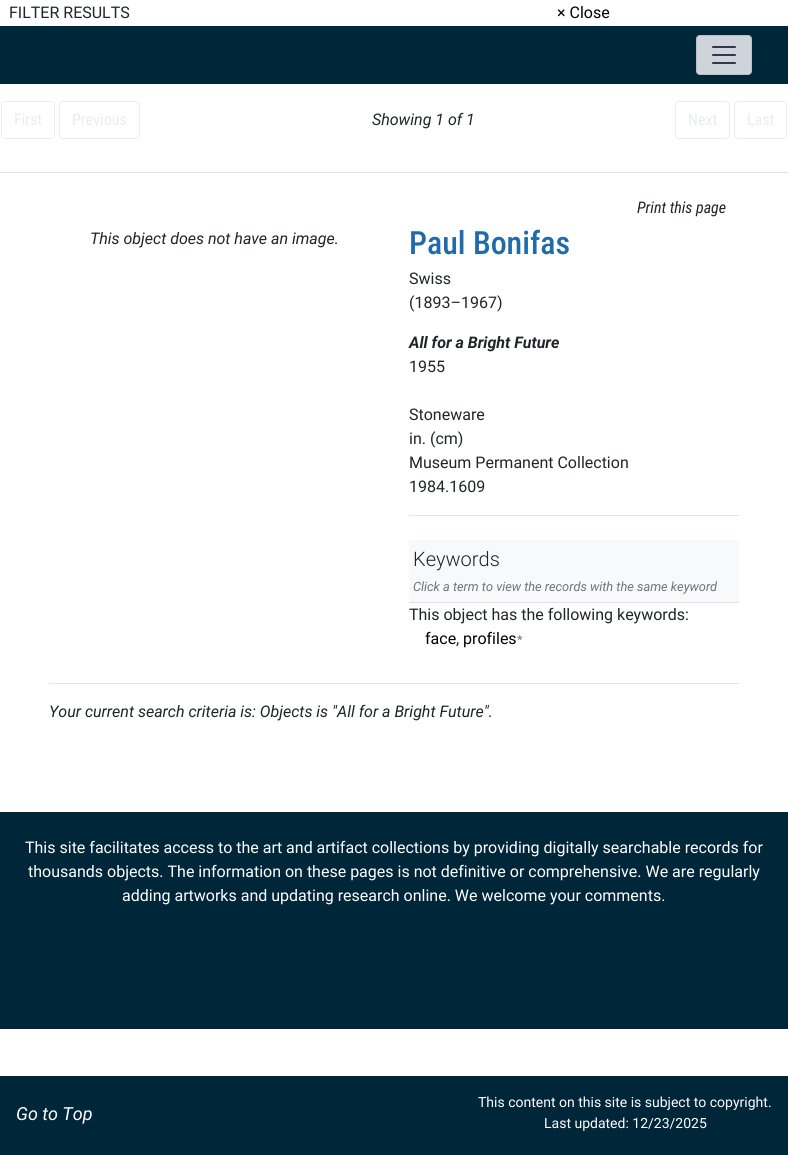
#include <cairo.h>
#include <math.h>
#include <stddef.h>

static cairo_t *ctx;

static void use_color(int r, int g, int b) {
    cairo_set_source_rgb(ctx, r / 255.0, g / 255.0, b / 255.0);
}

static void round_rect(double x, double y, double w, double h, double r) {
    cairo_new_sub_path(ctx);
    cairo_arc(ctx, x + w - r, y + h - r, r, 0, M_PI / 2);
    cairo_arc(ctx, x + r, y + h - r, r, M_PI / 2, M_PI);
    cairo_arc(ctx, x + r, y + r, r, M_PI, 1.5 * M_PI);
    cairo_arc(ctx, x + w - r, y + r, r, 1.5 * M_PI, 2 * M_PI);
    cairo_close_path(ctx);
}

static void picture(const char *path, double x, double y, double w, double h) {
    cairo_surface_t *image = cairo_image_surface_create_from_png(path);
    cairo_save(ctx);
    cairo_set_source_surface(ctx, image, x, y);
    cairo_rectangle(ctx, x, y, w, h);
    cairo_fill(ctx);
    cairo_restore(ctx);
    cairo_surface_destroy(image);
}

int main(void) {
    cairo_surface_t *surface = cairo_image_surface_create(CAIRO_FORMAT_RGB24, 788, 1155);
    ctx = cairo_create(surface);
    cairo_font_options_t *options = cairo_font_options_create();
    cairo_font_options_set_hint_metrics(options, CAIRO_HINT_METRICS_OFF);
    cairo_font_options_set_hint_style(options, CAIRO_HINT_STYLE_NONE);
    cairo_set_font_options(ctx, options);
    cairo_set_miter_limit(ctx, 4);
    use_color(255, 255, 255);
    cairo_paint(ctx);
    cairo_select_font_face(ctx, "Roboto", CAIRO_FONT_SLANT_NORMAL, CAIRO_FONT_WEIGHT_NORMAL);
    cairo_set_font_size(ctx, 16);
    use_color(33, 37, 41);
    cairo_move_to(ctx, 9, 18);
    cairo_show_text(ctx, "FILTER RESULTS");
    use_color(0, 0, 0);
    cairo_move_to(ctx, 557, 18);
    cairo_show_text(ctx, "× Close");
    use_color(0, 38, 58);
    cairo_rectangle(ctx, 0, 26, 788, 58);
    cairo_fill(ctx);
    use_color(206, 212, 218);
    round_rect(696, 35, 56, 40, 4);
    cairo_fill(ctx);
    round_rect(696.5, 35.5, 55, 39, 3.5);
    cairo_set_source_rgba(ctx, 0, 0, 0, 0.1);
    cairo_set_line_width(ctx, 1);
    cairo_stroke(ctx);
    picture("img1.png", 712, 46, 24, 18);
    round_rect(1.5, 101.5, 53, 37, 3.5);
    use_color(234, 236, 239);
    cairo_stroke(ctx);
    cairo_select_font_face(ctx, "Roboto Condensed", CAIRO_FONT_SLANT_NORMAL, CAIRO_FONT_WEIGHT_NORMAL);
    cairo_move_to(ctx, 14, 125);
    cairo_show_text(ctx, "First");
    round_rect(59.5, 101.5, 80, 37, 3.5);
    cairo_stroke(ctx);
    cairo_move_to(ctx, 72, 125);
    cairo_show_text(ctx, "Previous");
    cairo_select_font_face(ctx, "Roboto", CAIRO_FONT_SLANT_ITALIC, CAIRO_FONT_WEIGHT_NORMAL);
    use_color(33, 37, 41);
    cairo_move_to(ctx, 372, 125);
    cairo_show_text(ctx, "Showing 1 of 1");
    round_rect(675.5, 101.5, 54, 37, 3.5);
    use_color(234, 236, 239);
    cairo_stroke(ctx);
    cairo_select_font_face(ctx, "Roboto Condensed", CAIRO_FONT_SLANT_NORMAL, CAIRO_FONT_WEIGHT_NORMAL);
    cairo_move_to(ctx, 688, 125);
    cairo_show_text(ctx, "Next");
    round_rect(734.5, 101.5, 52, 37, 3.5);
    cairo_stroke(ctx);
    cairo_move_to(ctx, 747, 125);
    cairo_show_text(ctx, "Last");
    use_color(230, 230, 230);
    cairo_rectangle(ctx, 0, 172, 788, 1);
    cairo_fill(ctx);
    cairo_select_font_face(ctx, "Roboto Condensed", CAIRO_FONT_SLANT_ITALIC, CAIRO_FONT_WEIGHT_NORMAL);
    use_color(33, 37, 41);
    cairo_move_to(ctx, 637, 213);
    cairo_show_text(ctx, "Print this page");
    cairo_select_font_face(ctx, "Roboto", CAIRO_FONT_SLANT_ITALIC, CAIRO_FONT_WEIGHT_NORMAL);
    cairo_move_to(ctx, 90, 244);
    cairo_show_text(ctx, "This object does not have an image.");
    cairo_select_font_face(ctx, "Roboto Condensed Medium", CAIRO_FONT_SLANT_NORMAL, CAIRO_FONT_WEIGHT_NORMAL);
    cairo_set_font_size(ctx, 32);
    use_color(34, 107, 170);
    cairo_move_to(ctx, 409, 254);
    cairo_show_text(ctx, "Paul Bonifas");
    cairo_select_font_face(ctx, "Roboto", CAIRO_FONT_SLANT_NORMAL, CAIRO_FONT_WEIGHT_NORMAL);
    cairo_set_font_size(ctx, 16);
    use_color(33, 37, 41);
    cairo_move_to(ctx, 409, 284);
    cairo_show_text(ctx, "Swiss");
    cairo_move_to(ctx, 409, 308);
    cairo_show_text(ctx, "(1893–1967)");
    cairo_select_font_face(ctx, "Roboto", CAIRO_FONT_SLANT_ITALIC, CAIRO_FONT_WEIGHT_BOLD);
    cairo_move_to(ctx, 409, 348);
    cairo_show_text(ctx, "All for a Bright Future");
    cairo_select_font_face(ctx, "Roboto", CAIRO_FONT_SLANT_NORMAL, CAIRO_FONT_WEIGHT_NORMAL);
    cairo_move_to(ctx, 409, 372);
    cairo_show_text(ctx, "1955");
    cairo_move_to(ctx, 409, 420);
    cairo_show_text(ctx, "Stoneware");
    cairo_move_to(ctx, 409, 444);
    cairo_show_text(ctx, "in. (cm)");
    cairo_move_to(ctx, 409, 468);
    cairo_show_text(ctx, "Museum Permanent Collection");
    cairo_move_to(ctx, 409, 492);
    cairo_show_text(ctx, "1984.1609");
    use_color(230, 230, 230);
    cairo_rectangle(ctx, 409, 515, 330, 1);
    cairo_fill(ctx);
    use_color(248, 249, 250);
    cairo_rectangle(ctx, 409, 540, 330, 62);
    cairo_fill(ctx);
    use_color(222, 226, 230);
    cairo_rectangle(ctx, 409, 602, 330, 1);
    cairo_fill(ctx);
    cairo_select_font_face(ctx, "Roboto Light", CAIRO_FONT_SLANT_NORMAL, CAIRO_FONT_WEIGHT_NORMAL);
    cairo_set_font_size(ctx, 20);
    use_color(33, 37, 41);
    cairo_move_to(ctx, 413, 566);
    cairo_show_text(ctx, "Keywords");
    cairo_select_font_face(ctx, "Roboto", CAIRO_FONT_SLANT_ITALIC, CAIRO_FONT_WEIGHT_NORMAL);
    cairo_set_font_size(ctx, 12.8);
    use_color(108, 117, 125);
    cairo_move_to(ctx, 413, 591);
    cairo_show_text(ctx, "Click a term to view the records with the same keyword");
    cairo_select_font_face(ctx, "Roboto", CAIRO_FONT_SLANT_NORMAL, CAIRO_FONT_WEIGHT_NORMAL);
    cairo_set_font_size(ctx, 16);
    use_color(33, 37, 41);
    cairo_move_to(ctx, 409, 620);
    cairo_show_text(ctx, "This object has the following keywords:");
    use_color(0, 0, 0);
    cairo_move_to(ctx, 425, 644);
    cairo_show_text(ctx, "face");
    cairo_move_to(ctx, 463, 644);
    cairo_show_text(ctx, "profiles");
    cairo_set_font_size(ctx, 12.8);
    use_color(108, 117, 125);
    cairo_move_to(ctx, 517, 644);
    cairo_show_text(ctx, "*");
    cairo_set_font_size(ctx, 16);
    use_color(33, 37, 41);
    cairo_move_to(ctx, 456, 644);
    cairo_show_text(ctx, ",");
    use_color(230, 230, 230);
    cairo_rectangle(ctx, 49, 683, 690, 1);
    cairo_fill(ctx);
    cairo_select_font_face(ctx, "Roboto", CAIRO_FONT_SLANT_ITALIC, CAIRO_FONT_WEIGHT_NORMAL);
    use_color(33, 37, 41);
    cairo_move_to(ctx, 49, 717);
    cairo_show_text(ctx, "Your current search criteria is: Objects is \"All for a Bright Future\".");
    use_color(0, 38, 58);
    cairo_rectangle(ctx, 0, 812, 788, 217);
    cairo_fill(ctx);
    cairo_select_font_face(ctx, "Roboto", CAIRO_FONT_SLANT_NORMAL, CAIRO_FONT_WEIGHT_NORMAL);
    use_color(255, 255, 255);
    cairo_move_to(ctx, 25, 853);
    cairo_show_text(ctx, "This site facilitates access to the art and artifact collections by providing digitally searchable records for");
    cairo_move_to(ctx, 28, 877);
    cairo_show_text(ctx, "thousands objects. The information on these pages is not definitive or comprehensive. We are regularly");
    cairo_move_to(ctx, 122, 901);
    cairo_show_text(ctx, "adding artworks and updating research online. We welcome your comments.");
    use_color(0, 38, 58);
    cairo_rectangle(ctx, 0, 1076, 788, 79);
    cairo_fill(ctx);
    cairo_select_font_face(ctx, "Roboto", CAIRO_FONT_SLANT_ITALIC, CAIRO_FONT_WEIGHT_NORMAL);
    cairo_set_font_size(ctx, 18);
    use_color(255, 255, 255);
    cairo_move_to(ctx, 16, 1120);
    cairo_show_text(ctx, "Go to Top");
    cairo_select_font_face(ctx, "Roboto", CAIRO_FONT_SLANT_NORMAL, CAIRO_FONT_WEIGHT_NORMAL);
    cairo_set_font_size(ctx, 14);
    cairo_move_to(ctx, 478, 1107);
    cairo_show_text(ctx, "This content on this site is subject to copyright.");
    cairo_move_to(ctx, 544, 1128);
    cairo_show_text(ctx, "Last updated: 12/23/2025");
    cairo_surface_write_to_png(surface, "result.png");
    cairo_font_options_destroy(options);
    cairo_destroy(ctx);
    cairo_surface_destroy(surface);
    return 0;
}
